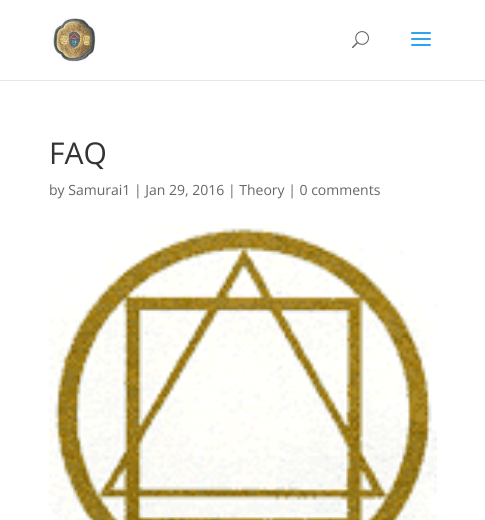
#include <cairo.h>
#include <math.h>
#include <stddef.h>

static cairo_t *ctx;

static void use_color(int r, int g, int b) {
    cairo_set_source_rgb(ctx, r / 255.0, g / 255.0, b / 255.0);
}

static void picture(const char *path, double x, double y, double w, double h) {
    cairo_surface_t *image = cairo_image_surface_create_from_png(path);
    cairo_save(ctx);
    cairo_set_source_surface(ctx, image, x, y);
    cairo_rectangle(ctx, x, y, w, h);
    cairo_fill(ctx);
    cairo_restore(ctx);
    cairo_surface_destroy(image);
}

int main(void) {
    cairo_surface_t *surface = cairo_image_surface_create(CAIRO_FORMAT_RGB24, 485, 520);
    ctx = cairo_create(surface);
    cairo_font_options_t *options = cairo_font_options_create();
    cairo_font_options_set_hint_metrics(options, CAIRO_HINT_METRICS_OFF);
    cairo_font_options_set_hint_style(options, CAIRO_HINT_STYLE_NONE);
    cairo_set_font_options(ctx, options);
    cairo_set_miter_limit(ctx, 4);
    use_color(255, 255, 255);
    cairo_paint(ctx);
    use_color(230, 230, 230);
    cairo_rectangle(ctx, 0, 80, 485, 1);
    cairo_fill(ctx);
    picture("img1.png", 52, 18, 44, 44);
    picture("img2.png", 352, 31, 17, 18);
    picture("img3.png", 411, 32, 20, 14);
    cairo_select_font_face(ctx, "Open Sans", CAIRO_FONT_SLANT_NORMAL, CAIRO_FONT_WEIGHT_NORMAL);
    cairo_set_font_size(ctx, 30);
    use_color(51, 51, 51);
    cairo_move_to(ctx, 49, 164);
    cairo_show_text(ctx, "FAQ");
    cairo_set_font_size(ctx, 14);
    use_color(102, 102, 102);
    cairo_move_to(ctx, 49, 195);
    cairo_show_text(ctx, "by Samurai1 | Jan 29, 2016 | Theory | 0 comments");
    picture("img4.png", 49, 223, 388, 297);
    cairo_surface_write_to_png(surface, "result.png");
    cairo_font_options_destroy(options);
    cairo_destroy(ctx);
    cairo_surface_destroy(surface);
    return 0;
}
